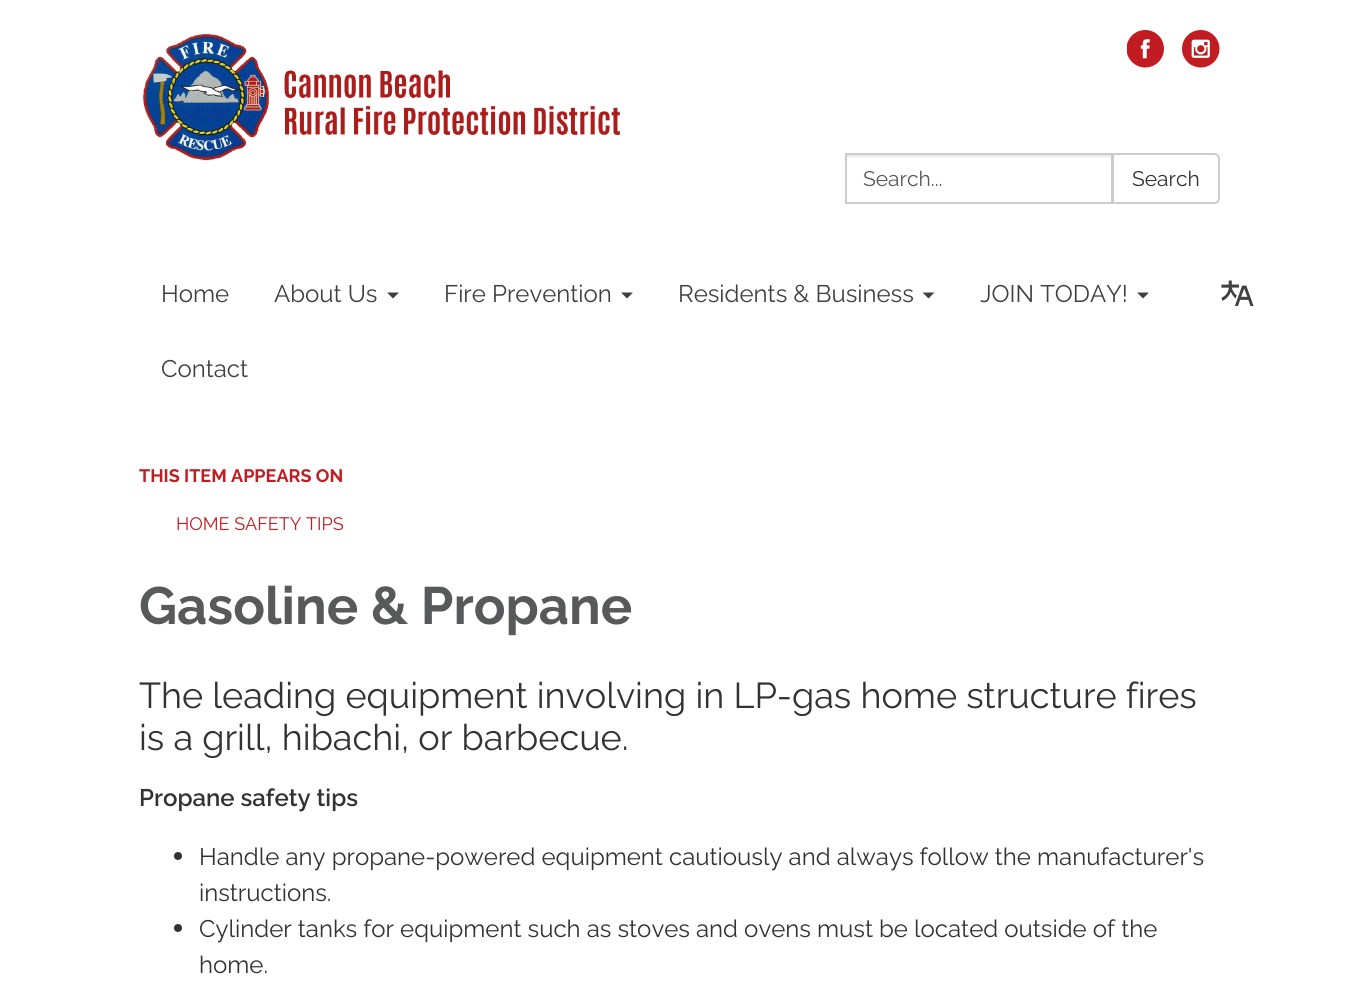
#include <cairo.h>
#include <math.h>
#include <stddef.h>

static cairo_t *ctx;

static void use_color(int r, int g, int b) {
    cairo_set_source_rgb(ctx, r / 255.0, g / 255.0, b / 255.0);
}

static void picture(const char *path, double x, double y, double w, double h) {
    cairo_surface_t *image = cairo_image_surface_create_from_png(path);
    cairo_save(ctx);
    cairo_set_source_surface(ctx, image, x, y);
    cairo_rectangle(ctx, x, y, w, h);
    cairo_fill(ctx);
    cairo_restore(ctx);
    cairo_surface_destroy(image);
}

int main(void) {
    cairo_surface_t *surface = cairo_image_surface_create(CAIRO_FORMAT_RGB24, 1357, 983);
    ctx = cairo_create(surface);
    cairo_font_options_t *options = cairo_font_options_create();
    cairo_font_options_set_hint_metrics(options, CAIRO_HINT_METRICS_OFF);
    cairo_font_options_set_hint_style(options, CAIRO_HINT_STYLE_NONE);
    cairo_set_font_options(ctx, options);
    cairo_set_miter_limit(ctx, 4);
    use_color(255, 255, 255);
    cairo_paint(ctx);
    picture("img1.png", 143, 34, 477, 127);
    picture("img2.png", 1127, 30, 37, 38);
    picture("img3.png", 1182, 30, 38, 38);
    use_color(236, 236, 236);
    cairo_rectangle(ctx, 846, 155, 266, 2);
    cairo_fill(ctx);
    cairo_rectangle(ctx, 846, 154, 266, 49);
    use_color(204, 204, 204);
    cairo_stroke(ctx);
    cairo_select_font_face(ctx, "Raleway", CAIRO_FONT_SLANT_NORMAL, CAIRO_FONT_WEIGHT_NORMAL);
    cairo_set_font_size(ctx, 21);
    use_color(88, 89, 91);
    cairo_move_to(ctx, 863, 186);
    cairo_show_text(ctx, "Search...");
    use_color(255, 255, 255);
    cairo_new_path(ctx);
    cairo_move_to(ctx, 1113, 154);
    cairo_line_to(ctx, 1214, 154);
    cairo_curve_to(ctx, 1217, 154, 1219, 156, 1219, 159);
    cairo_line_to(ctx, 1219, 198);
    cairo_curve_to(ctx, 1219, 201, 1217, 203, 1214, 203);
    cairo_line_to(ctx, 1113, 203);
    cairo_close_path(ctx);
    cairo_fill_preserve(ctx);
    use_color(204, 204, 204);
    cairo_stroke(ctx);
    use_color(51, 51, 51);
    cairo_move_to(ctx, 1132, 186);
    cairo_show_text(ctx, "Search");
    cairo_set_font_size(ctx, 24);
    use_color(64, 64, 65);
    cairo_move_to(ctx, 161, 302);
    cairo_show_text(ctx, "Home");
    cairo_move_to(ctx, 274, 302);
    cairo_show_text(ctx, "About Us");
    cairo_new_path(ctx);
    cairo_move_to(ctx, 387, 292.5);
    cairo_line_to(ctx, 399, 292.5);
    cairo_line_to(ctx, 393, 298.5);
    cairo_close_path(ctx);
    cairo_fill(ctx);
    cairo_move_to(ctx, 444, 302);
    cairo_show_text(ctx, "Fire Prevention");
    cairo_new_path(ctx);
    cairo_move_to(ctx, 621, 292.5);
    cairo_line_to(ctx, 633, 292.5);
    cairo_line_to(ctx, 627, 298.5);
    cairo_close_path(ctx);
    cairo_fill(ctx);
    cairo_move_to(ctx, 678, 302);
    cairo_show_text(ctx, "Residents & Business");
    cairo_new_path(ctx);
    cairo_move_to(ctx, 922.5, 292.5);
    cairo_line_to(ctx, 934.5, 292.5);
    cairo_line_to(ctx, 928.5, 298.5);
    cairo_close_path(ctx);
    cairo_fill(ctx);
    cairo_move_to(ctx, 980, 302);
    cairo_show_text(ctx, "JOIN TODAY!");
    cairo_new_path(ctx);
    cairo_move_to(ctx, 1137, 292.5);
    cairo_line_to(ctx, 1149, 292.5);
    cairo_line_to(ctx, 1143, 298.5);
    cairo_close_path(ctx);
    cairo_fill(ctx);
    cairo_move_to(ctx, 161, 377);
    cairo_show_text(ctx, "Contact");
    picture("img4.png", 1221, 280, 33, 26);
    cairo_select_font_face(ctx, "Raleway", CAIRO_FONT_SLANT_NORMAL, CAIRO_FONT_WEIGHT_BOLD);
    cairo_set_font_size(ctx, 18);
    use_color(194, 28, 35);
    cairo_move_to(ctx, 139, 482);
    cairo_show_text(ctx, "THIS ITEM APPEARS ON");
    cairo_select_font_face(ctx, "Raleway", CAIRO_FONT_SLANT_NORMAL, CAIRO_FONT_WEIGHT_NORMAL);
    cairo_move_to(ctx, 176, 530);
    cairo_show_text(ctx, "HOME SAFETY TIPS");
    cairo_select_font_face(ctx, "Raleway", CAIRO_FONT_SLANT_NORMAL, CAIRO_FONT_WEIGHT_BOLD);
    cairo_set_font_size(ctx, 52.5);
    use_color(88, 89, 91);
    cairo_move_to(ctx, 139, 624);
    cairo_show_text(ctx, "Gasoline & Propane");
    cairo_select_font_face(ctx, "Raleway", CAIRO_FONT_SLANT_NORMAL, CAIRO_FONT_WEIGHT_NORMAL);
    cairo_set_font_size(ctx, 36);
    use_color(51, 51, 51);
    cairo_move_to(ctx, 139, 708);
    cairo_show_text(ctx, "The leading equipment involving in LP-gas home structure fires");
    cairo_move_to(ctx, 139, 750);
    cairo_show_text(ctx, "is a grill, hibachi, or barbecue.");
    cairo_select_font_face(ctx, "Raleway SemiBold", CAIRO_FONT_SLANT_NORMAL, CAIRO_FONT_WEIGHT_NORMAL);
    cairo_set_font_size(ctx, 24);
    cairo_move_to(ctx, 139, 806);
    cairo_show_text(ctx, "Propane safety tips");
    cairo_new_path(ctx);
    cairo_arc(ctx, 178, 856, 4, 0, 2 * M_PI);
    cairo_fill(ctx);
    cairo_select_font_face(ctx, "Raleway", CAIRO_FONT_SLANT_NORMAL, CAIRO_FONT_WEIGHT_NORMAL);
    cairo_move_to(ctx, 199, 865);
    cairo_show_text(ctx, "Handle any propane-powered equipment cautiously and always follow the manufacturer's");
    cairo_move_to(ctx, 199, 901);
    cairo_show_text(ctx, "instructions.");
    cairo_new_path(ctx);
    cairo_arc(ctx, 178, 928, 4, 0, 2 * M_PI);
    cairo_fill(ctx);
    cairo_move_to(ctx, 199, 937);
    cairo_show_text(ctx, "Cylinder tanks for equipment such as stoves and ovens must be located outside of the");
    cairo_move_to(ctx, 199, 973);
    cairo_show_text(ctx, "home.");
    cairo_surface_write_to_png(surface, "result.png");
    cairo_font_options_destroy(options);
    cairo_destroy(ctx);
    cairo_surface_destroy(surface);
    return 0;
}
